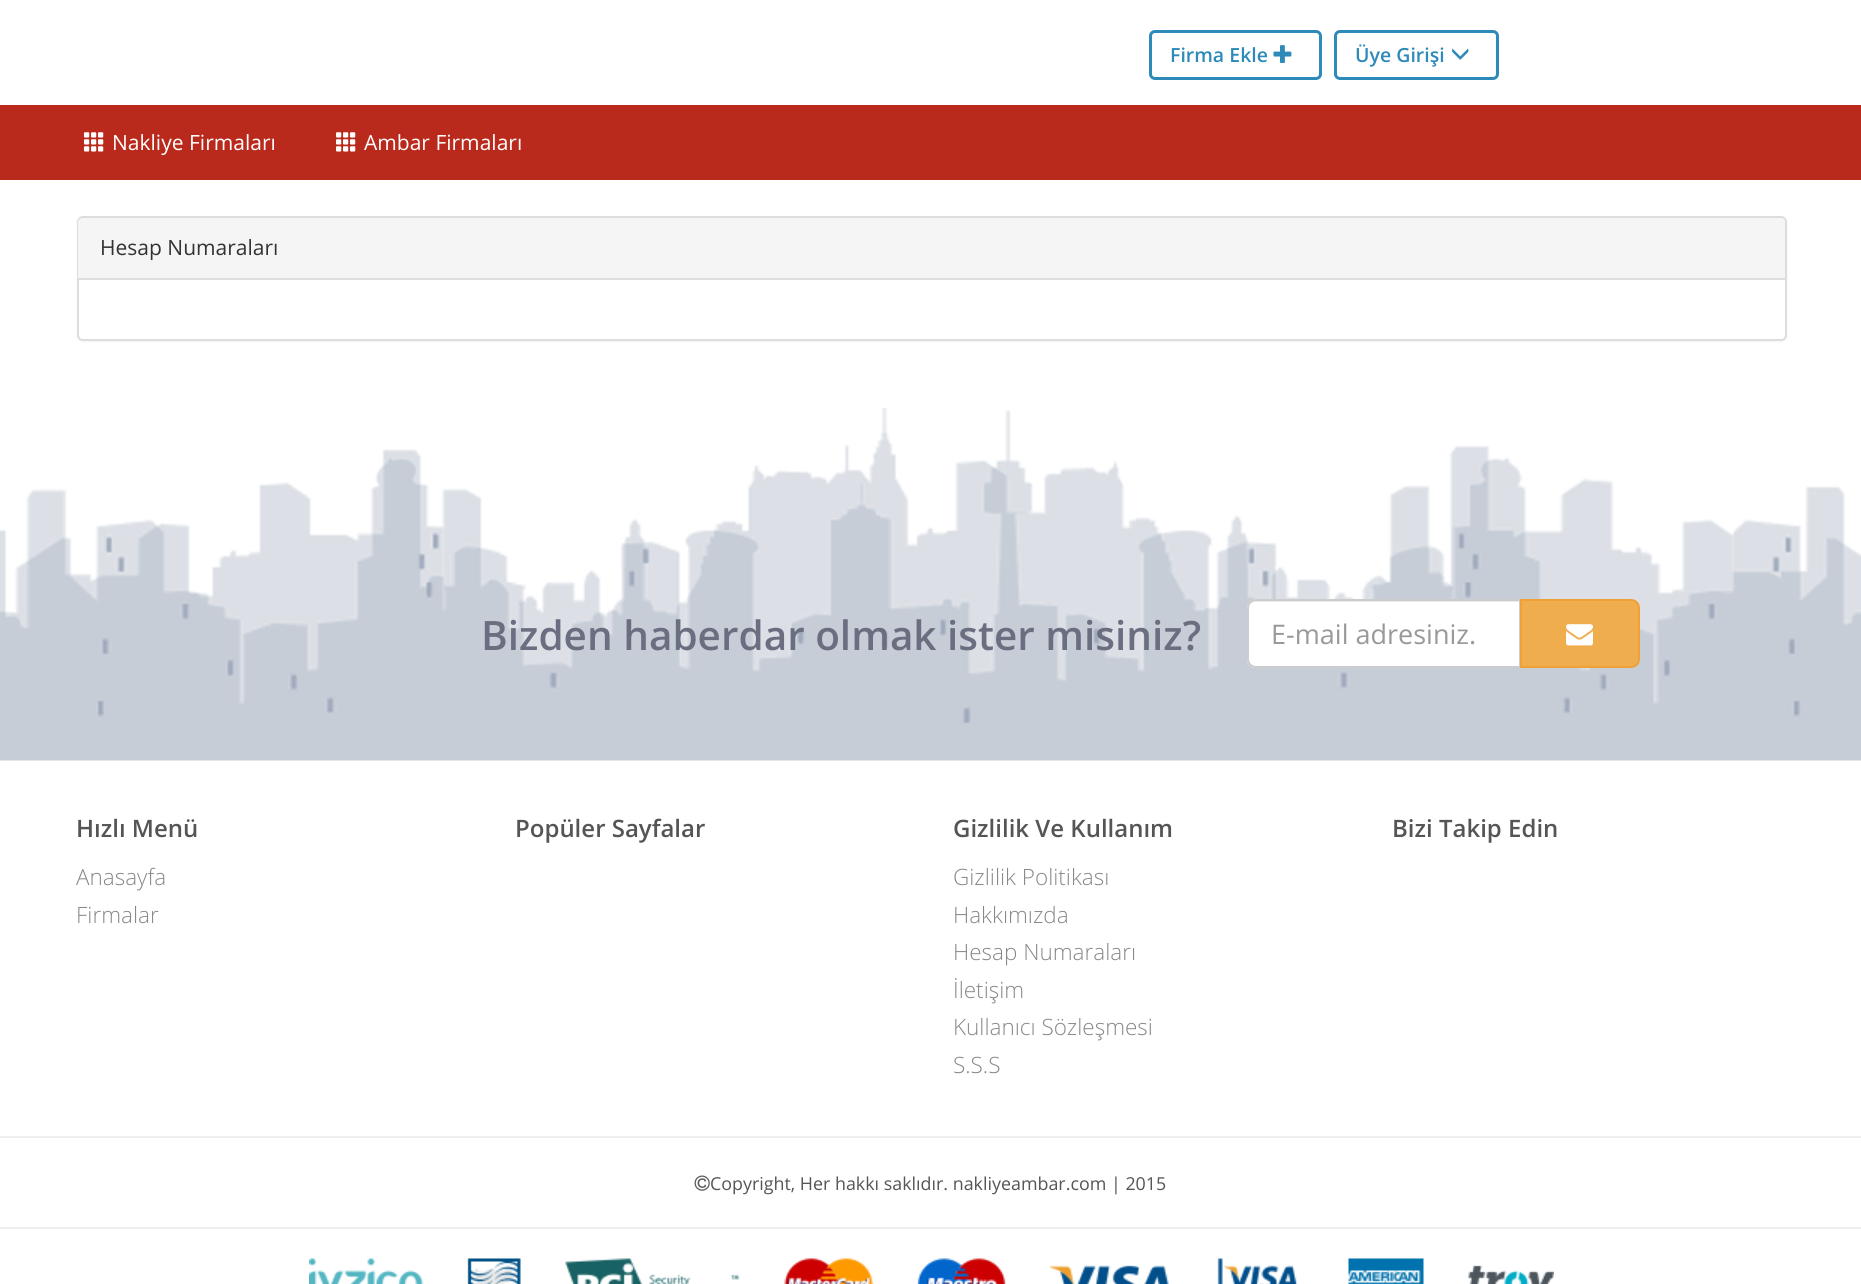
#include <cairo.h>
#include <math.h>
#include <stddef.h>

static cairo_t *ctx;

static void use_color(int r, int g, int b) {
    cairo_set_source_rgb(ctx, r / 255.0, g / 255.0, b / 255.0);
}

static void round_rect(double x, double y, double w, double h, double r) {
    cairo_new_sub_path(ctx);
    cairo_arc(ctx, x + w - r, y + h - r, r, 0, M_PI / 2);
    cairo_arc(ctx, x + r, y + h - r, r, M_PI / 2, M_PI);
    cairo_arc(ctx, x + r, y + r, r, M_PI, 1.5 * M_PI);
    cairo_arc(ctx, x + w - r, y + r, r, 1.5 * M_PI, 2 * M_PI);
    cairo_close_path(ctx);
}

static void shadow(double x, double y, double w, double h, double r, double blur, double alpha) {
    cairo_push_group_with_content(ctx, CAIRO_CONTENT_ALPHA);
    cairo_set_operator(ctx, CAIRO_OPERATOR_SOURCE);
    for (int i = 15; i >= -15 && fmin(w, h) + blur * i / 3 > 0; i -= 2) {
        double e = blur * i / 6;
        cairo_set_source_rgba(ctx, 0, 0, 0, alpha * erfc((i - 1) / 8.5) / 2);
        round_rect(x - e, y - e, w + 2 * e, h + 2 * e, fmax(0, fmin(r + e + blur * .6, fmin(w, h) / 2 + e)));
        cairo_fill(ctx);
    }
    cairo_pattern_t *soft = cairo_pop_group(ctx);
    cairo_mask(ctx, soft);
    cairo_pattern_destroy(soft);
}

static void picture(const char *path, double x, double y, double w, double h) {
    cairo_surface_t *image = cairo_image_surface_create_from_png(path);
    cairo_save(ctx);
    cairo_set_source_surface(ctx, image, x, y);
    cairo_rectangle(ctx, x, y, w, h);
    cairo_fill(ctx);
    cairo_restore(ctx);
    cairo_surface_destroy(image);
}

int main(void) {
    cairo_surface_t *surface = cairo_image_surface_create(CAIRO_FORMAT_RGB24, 1861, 1284);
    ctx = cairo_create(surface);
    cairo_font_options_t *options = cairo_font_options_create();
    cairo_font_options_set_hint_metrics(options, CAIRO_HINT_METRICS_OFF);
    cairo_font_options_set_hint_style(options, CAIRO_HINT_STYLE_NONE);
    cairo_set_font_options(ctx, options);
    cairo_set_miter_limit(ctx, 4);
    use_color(255, 255, 255);
    cairo_paint(ctx);
    round_rect(1150.5, 31.5, 170, 47, 4.5);
    use_color(45, 138, 185);
    cairo_set_line_width(ctx, 3);
    cairo_stroke(ctx);
    cairo_select_font_face(ctx, "Open Sans SemiBold", CAIRO_FONT_SLANT_NORMAL, CAIRO_FONT_WEIGHT_NORMAL);
    cairo_set_font_size(ctx, 19.5);
    cairo_move_to(ctx, 1170, 62);
    cairo_show_text(ctx, "Firma Ekle");
    picture("img1.png", 1273, 45, 19, 18);
    round_rect(1335.5, 31.5, 162, 47, 4.5);
    cairo_stroke(ctx);
    cairo_move_to(ctx, 1355, 62);
    cairo_show_text(ctx, "Üye Girişi");
    picture("img2.png", 1452, 48, 17, 12);
    use_color(186, 42, 28);
    cairo_rectangle(ctx, 0, 105, 1861, 75);
    cairo_fill(ctx);
    picture("img3.png", 84, 132, 20, 20);
    cairo_select_font_face(ctx, "Open Sans", CAIRO_FONT_SLANT_NORMAL, CAIRO_FONT_WEIGHT_NORMAL);
    cairo_set_font_size(ctx, 21);
    use_color(255, 255, 255);
    cairo_move_to(ctx, 112, 150);
    cairo_show_text(ctx, "Nakliye Firmaları");
    picture("img3.png", 336, 132, 20, 20);
    cairo_move_to(ctx, 364, 150);
    cairo_show_text(ctx, "Ambar Firmaları");
    use_color(0, 0, 0);
    shadow(77, 218, 1710, 124, 6, 1, 0.05);
    use_color(255, 255, 255);
    round_rect(78, 217, 1708, 123, 5);
    cairo_fill_preserve(ctx);
    use_color(221, 221, 221);
    cairo_set_line_width(ctx, 2);
    cairo_stroke(ctx);
    use_color(245, 245, 245);
    cairo_new_path(ctx);
    cairo_move_to(ctx, 83, 218);
    cairo_line_to(ctx, 1780, 218);
    cairo_curve_to(ctx, 1783, 218, 1785, 220, 1785, 223);
    cairo_line_to(ctx, 1785, 279);
    cairo_line_to(ctx, 78, 279);
    cairo_line_to(ctx, 78, 223);
    cairo_curve_to(ctx, 78, 220, 80, 218, 83, 218);
    cairo_close_path(ctx);
    cairo_fill(ctx);
    use_color(221, 221, 221);
    cairo_rectangle(ctx, 78, 278, 1707, 2);
    cairo_fill(ctx);
    use_color(51, 51, 51);
    cairo_move_to(ctx, 100, 255);
    cairo_show_text(ctx, "Hesap Numaraları");
    picture("img4.png", 0, 408, 1861, 353);
    cairo_select_font_face(ctx, "Open Sans SemiBold", CAIRO_FONT_SLANT_NORMAL, CAIRO_FONT_WEIGHT_NORMAL);
    cairo_set_font_size(ctx, 40.5);
    use_color(107, 110, 128);
    cairo_move_to(ctx, 481, 650);
    cairo_show_text(ctx, "Bizden haberdar olmak ister misiniz?");
    use_color(255, 255, 255);
    cairo_new_path(ctx);
    cairo_move_to(ctx, 1256, 599);
    cairo_line_to(ctx, 1521, 599);
    cairo_line_to(ctx, 1521, 668);
    cairo_line_to(ctx, 1256, 668);
    cairo_curve_to(ctx, 1251, 668, 1247, 664, 1247, 659);
    cairo_line_to(ctx, 1247, 608);
    cairo_curve_to(ctx, 1247, 603, 1251, 599, 1256, 599);
    cairo_close_path(ctx);
    cairo_fill(ctx);
    use_color(236, 236, 236);
    cairo_new_path(ctx);
    cairo_move_to(ctx, 1256, 602);
    cairo_line_to(ctx, 1520, 602);
    cairo_line_to(ctx, 1520, 600);
    cairo_line_to(ctx, 1256, 600);
    cairo_curve_to(ctx, 1251, 600, 1248, 604, 1248, 609);
    cairo_curve_to(ctx, 1248, 605, 1251, 602, 1256, 602);
    cairo_close_path(ctx);
    cairo_fill(ctx);
    cairo_new_path(ctx);
    cairo_move_to(ctx, 1256, 600);
    cairo_line_to(ctx, 1520, 600);
    cairo_line_to(ctx, 1520, 667);
    cairo_line_to(ctx, 1256, 667);
    cairo_curve_to(ctx, 1251.5, 667, 1248, 663.5, 1248, 659);
    cairo_line_to(ctx, 1248, 608);
    cairo_curve_to(ctx, 1248, 603.5, 1251.5, 600, 1256, 600);
    cairo_close_path(ctx);
    use_color(204, 204, 204);
    cairo_stroke(ctx);
    cairo_select_font_face(ctx, "Open Sans", CAIRO_FONT_SLANT_NORMAL, CAIRO_FONT_WEIGHT_NORMAL);
    cairo_set_font_size(ctx, 27);
    use_color(153, 153, 153);
    cairo_move_to(ctx, 1271, 644);
    cairo_show_text(ctx, "E-mail adresiniz.");
    use_color(240, 173, 78);
    cairo_new_path(ctx);
    cairo_move_to(ctx, 1521, 600);
    cairo_line_to(ctx, 1631, 600);
    cairo_curve_to(ctx, 1635.5, 600, 1639, 603.5, 1639, 608);
    cairo_line_to(ctx, 1639, 659);
    cairo_curve_to(ctx, 1639, 663.5, 1635.5, 667, 1631, 667);
    cairo_line_to(ctx, 1521, 667);
    cairo_close_path(ctx);
    cairo_fill_preserve(ctx);
    use_color(238, 162, 54);
    cairo_stroke(ctx);
    picture("img5.png", 1566, 624, 27, 22);
    cairo_select_font_face(ctx, "Open Sans SemiBold", CAIRO_FONT_SLANT_NORMAL, CAIRO_FONT_WEIGHT_NORMAL);
    cairo_set_font_size(ctx, 24);
    use_color(85, 85, 85);
    cairo_move_to(ctx, 76, 837);
    cairo_show_text(ctx, "Hızlı Menü");
    cairo_select_font_face(ctx, "Open Sans Light", CAIRO_FONT_SLANT_NORMAL, CAIRO_FONT_WEIGHT_NORMAL);
    cairo_set_font_size(ctx, 22.5);
    use_color(136, 136, 136);
    cairo_move_to(ctx, 76, 885);
    cairo_show_text(ctx, "Anasayfa");
    cairo_move_to(ctx, 76, 923);
    cairo_show_text(ctx, "Firmalar");
    cairo_select_font_face(ctx, "Open Sans SemiBold", CAIRO_FONT_SLANT_NORMAL, CAIRO_FONT_WEIGHT_NORMAL);
    cairo_set_font_size(ctx, 24);
    use_color(85, 85, 85);
    cairo_move_to(ctx, 515, 837);
    cairo_show_text(ctx, "Popüler Sayfalar");
    cairo_move_to(ctx, 953, 837);
    cairo_show_text(ctx, "Gizlilik Ve Kullanım");
    cairo_select_font_face(ctx, "Open Sans Light", CAIRO_FONT_SLANT_NORMAL, CAIRO_FONT_WEIGHT_NORMAL);
    cairo_set_font_size(ctx, 22.5);
    use_color(136, 136, 136);
    cairo_move_to(ctx, 953, 885);
    cairo_show_text(ctx, "Gizlilik Politikası");
    cairo_move_to(ctx, 953, 923);
    cairo_show_text(ctx, "Hakkımızda");
    cairo_move_to(ctx, 953, 960);
    cairo_show_text(ctx, "Hesap Numaraları");
    cairo_move_to(ctx, 953, 998);
    cairo_show_text(ctx, "İletişim");
    cairo_move_to(ctx, 953, 1035);
    cairo_show_text(ctx, "Kullanıcı Sözleşmesi");
    cairo_move_to(ctx, 953, 1073);
    cairo_show_text(ctx, "S.S.S");
    cairo_select_font_face(ctx, "Open Sans SemiBold", CAIRO_FONT_SLANT_NORMAL, CAIRO_FONT_WEIGHT_NORMAL);
    cairo_set_font_size(ctx, 24);
    use_color(85, 85, 85);
    cairo_move_to(ctx, 1392, 837);
    cairo_show_text(ctx, "Bizi Takip Edin");
    use_color(238, 238, 238);
    cairo_rectangle(ctx, 0, 1136, 1861, 2);
    cairo_fill(ctx);
    picture("img6.png", 694, 1175, 16, 16);
    cairo_select_font_face(ctx, "Open Sans", CAIRO_FONT_SLANT_NORMAL, CAIRO_FONT_WEIGHT_NORMAL);
    cairo_set_font_size(ctx, 17.85);
    use_color(85, 85, 85);
    cairo_move_to(ctx, 710, 1190);
    cairo_show_text(ctx, "Copyright, Her hakkı saklıdır. nakliyeambar.com | 2015");
    use_color(238, 238, 238);
    cairo_rectangle(ctx, 0, 1227, 1861, 2);
    cairo_fill(ctx);
    picture("img7.png", 309, 1258, 1245, 26);
    cairo_surface_write_to_png(surface, "result.png");
    cairo_font_options_destroy(options);
    cairo_destroy(ctx);
    cairo_surface_destroy(surface);
    return 0;
}
